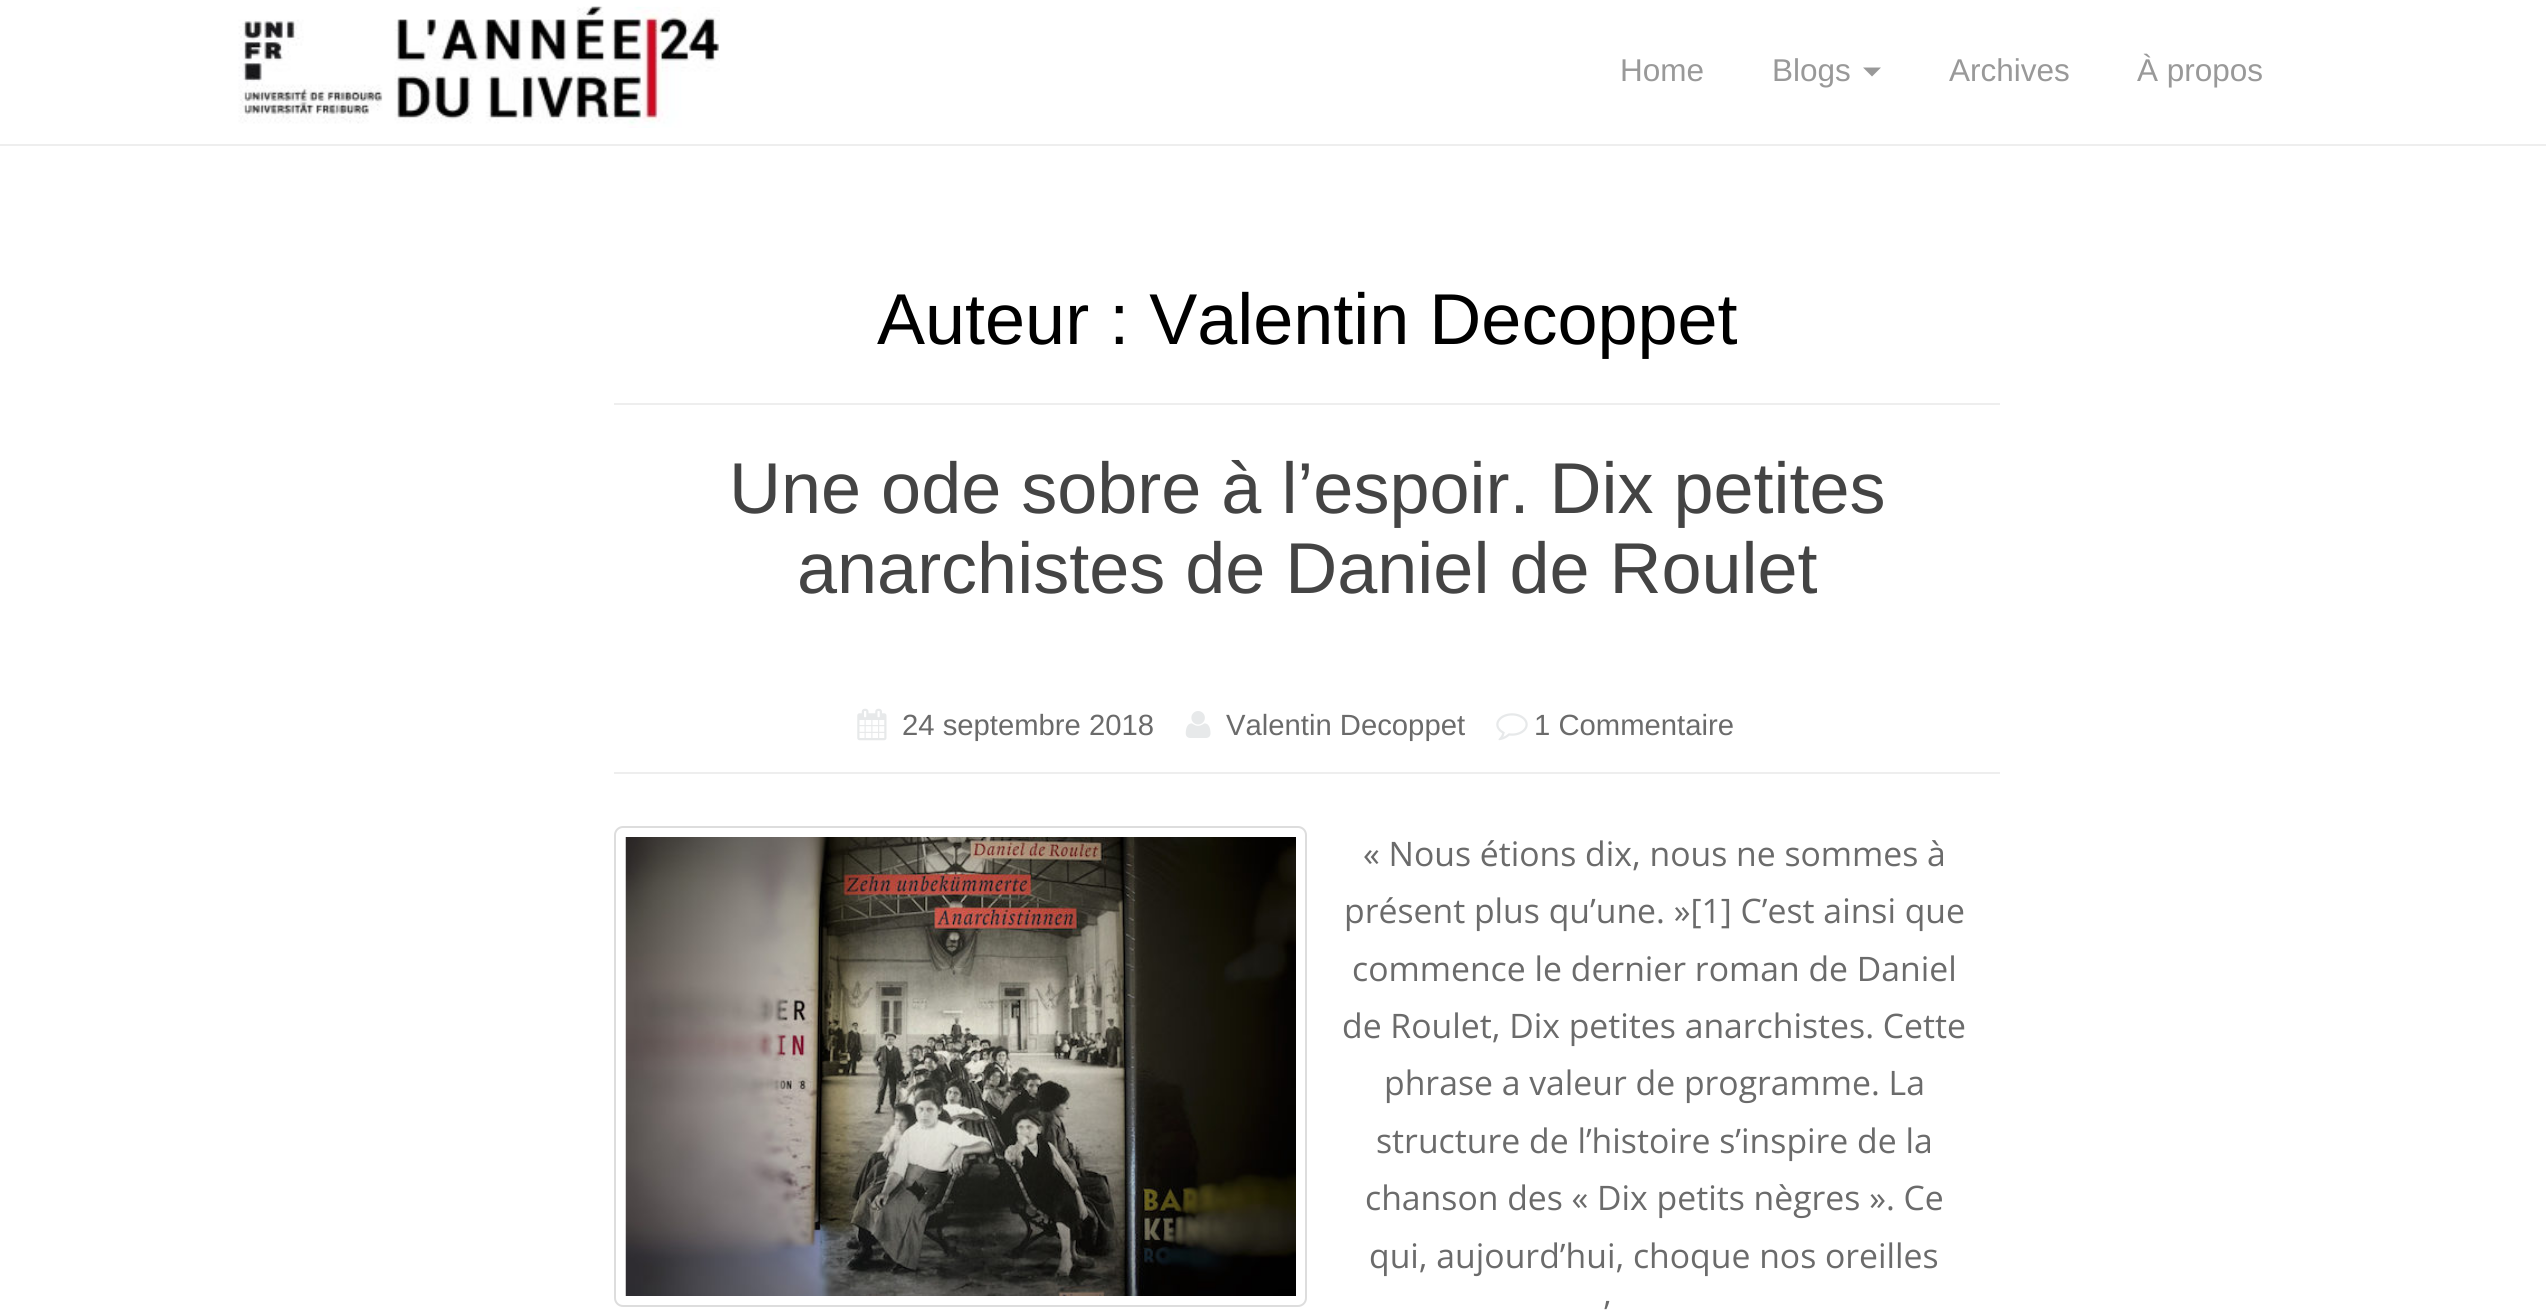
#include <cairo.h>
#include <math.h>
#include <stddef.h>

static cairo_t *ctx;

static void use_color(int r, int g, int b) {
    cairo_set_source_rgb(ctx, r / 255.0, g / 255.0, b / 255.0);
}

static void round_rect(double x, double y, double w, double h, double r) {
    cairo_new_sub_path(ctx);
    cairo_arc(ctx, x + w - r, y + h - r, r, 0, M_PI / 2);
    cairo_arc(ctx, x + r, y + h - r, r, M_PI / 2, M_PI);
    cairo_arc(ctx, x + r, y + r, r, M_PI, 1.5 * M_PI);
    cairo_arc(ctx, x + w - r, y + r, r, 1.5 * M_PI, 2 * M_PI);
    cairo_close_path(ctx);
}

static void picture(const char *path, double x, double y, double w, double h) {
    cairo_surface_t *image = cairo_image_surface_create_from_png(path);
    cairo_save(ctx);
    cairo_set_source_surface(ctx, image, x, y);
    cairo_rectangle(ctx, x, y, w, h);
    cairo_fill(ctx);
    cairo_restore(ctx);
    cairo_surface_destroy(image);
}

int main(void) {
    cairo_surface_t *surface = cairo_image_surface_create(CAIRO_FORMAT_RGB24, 2546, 1311);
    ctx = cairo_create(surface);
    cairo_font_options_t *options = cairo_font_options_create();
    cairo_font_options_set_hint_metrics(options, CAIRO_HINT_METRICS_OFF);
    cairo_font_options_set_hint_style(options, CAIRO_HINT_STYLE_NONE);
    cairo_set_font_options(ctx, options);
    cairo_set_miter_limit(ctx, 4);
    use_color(255, 255, 255);
    cairo_paint(ctx);
    use_color(238, 238, 238);
    cairo_rectangle(ctx, 0, 144, 2546, 2);
    cairo_fill(ctx);
    picture("img1.png", 238, 6, 482, 122);
    cairo_select_font_face(ctx, "Liberation Sans", CAIRO_FONT_SLANT_NORMAL, CAIRO_FONT_WEIGHT_NORMAL);
    cairo_set_font_size(ctx, 31.5);
    use_color(153, 153, 153);
    cairo_move_to(ctx, 1620, 81);
    cairo_show_text(ctx, "Home");
    cairo_move_to(ctx, 1772, 81);
    cairo_show_text(ctx, "Blogs");
    cairo_new_path(ctx);
    cairo_move_to(ctx, 1863, 67.5);
    cairo_line_to(ctx, 1881, 67.5);
    cairo_line_to(ctx, 1872, 76.5);
    cairo_close_path(ctx);
    cairo_fill(ctx);
    cairo_move_to(ctx, 1949, 81);
    cairo_show_text(ctx, "Archives");
    cairo_move_to(ctx, 2137, 81);
    cairo_show_text(ctx, "À propos");
    use_color(238, 238, 238);
    cairo_rectangle(ctx, 614, 403, 1386, 2);
    cairo_fill(ctx);
    cairo_set_font_size(ctx, 72);
    use_color(0, 0, 0);
    cairo_move_to(ctx, 877, 344);
    cairo_show_text(ctx, "Auteur : Valentin Decoppet");
    use_color(238, 238, 238);
    cairo_rectangle(ctx, 614, 772, 1386, 2);
    cairo_fill(ctx);
    use_color(68, 68, 68);
    cairo_move_to(ctx, 729, 513);
    cairo_show_text(ctx, "Une ode sobre à l’espoir. Dix petites");
    cairo_move_to(ctx, 797, 593);
    cairo_show_text(ctx, "anarchistes de Daniel de Roulet");
    picture("img2.png", 857, 708, 30, 33);
    cairo_set_font_size(ctx, 29.25);
    use_color(107, 107, 107);
    cairo_move_to(ctx, 902, 735);
    cairo_show_text(ctx, "24 septembre 2018");
    picture("img3.png", 1185, 711, 26, 27);
    cairo_move_to(ctx, 1226, 735);
    cairo_show_text(ctx, "Valentin Decoppet");
    picture("img4.png", 1496, 713, 32, 28);
    cairo_move_to(ctx, 1534, 735);
    cairo_show_text(ctx, "1 Commentaire");
    round_rect(615, 827, 691, 479, 8);
    use_color(221, 221, 221);
    cairo_stroke(ctx);
    picture("img5.png", 625, 837, 671, 459);
    cairo_select_font_face(ctx, "Open Sans", CAIRO_FONT_SLANT_NORMAL, CAIRO_FONT_WEIGHT_NORMAL);
    cairo_set_font_size(ctx, 33.75);
    use_color(107, 107, 107);
    cairo_move_to(ctx, 1363, 866);
    cairo_show_text(ctx, "« Nous étions dix, nous ne sommes à");
    cairo_move_to(ctx, 1344, 923);
    cairo_show_text(ctx, "présent plus qu’une. »[1] C’est ainsi que");
    cairo_move_to(ctx, 1352, 981);
    cairo_show_text(ctx, "commence le dernier roman de Daniel");
    cairo_move_to(ctx, 1342, 1038);
    cairo_show_text(ctx, "de Roulet, Dix petites anarchistes. Cette");
    cairo_move_to(ctx, 1384, 1095);
    cairo_show_text(ctx, "phrase a valeur de programme. La");
    cairo_move_to(ctx, 1376, 1153);
    cairo_show_text(ctx, "structure de l’histoire s’inspire de la");
    cairo_move_to(ctx, 1365, 1210);
    cairo_show_text(ctx, "chanson des « Dix petits nègres ». Ce");
    cairo_move_to(ctx, 1369, 1268);
    cairo_show_text(ctx, "qui, aujourd’hui, choque nos oreilles");
    cairo_move_to(ctx, 1604, 1325);
    cairo_show_text(ctx, "’");
    cairo_surface_write_to_png(surface, "result.png");
    cairo_font_options_destroy(options);
    cairo_destroy(ctx);
    cairo_surface_destroy(surface);
    return 0;
}
